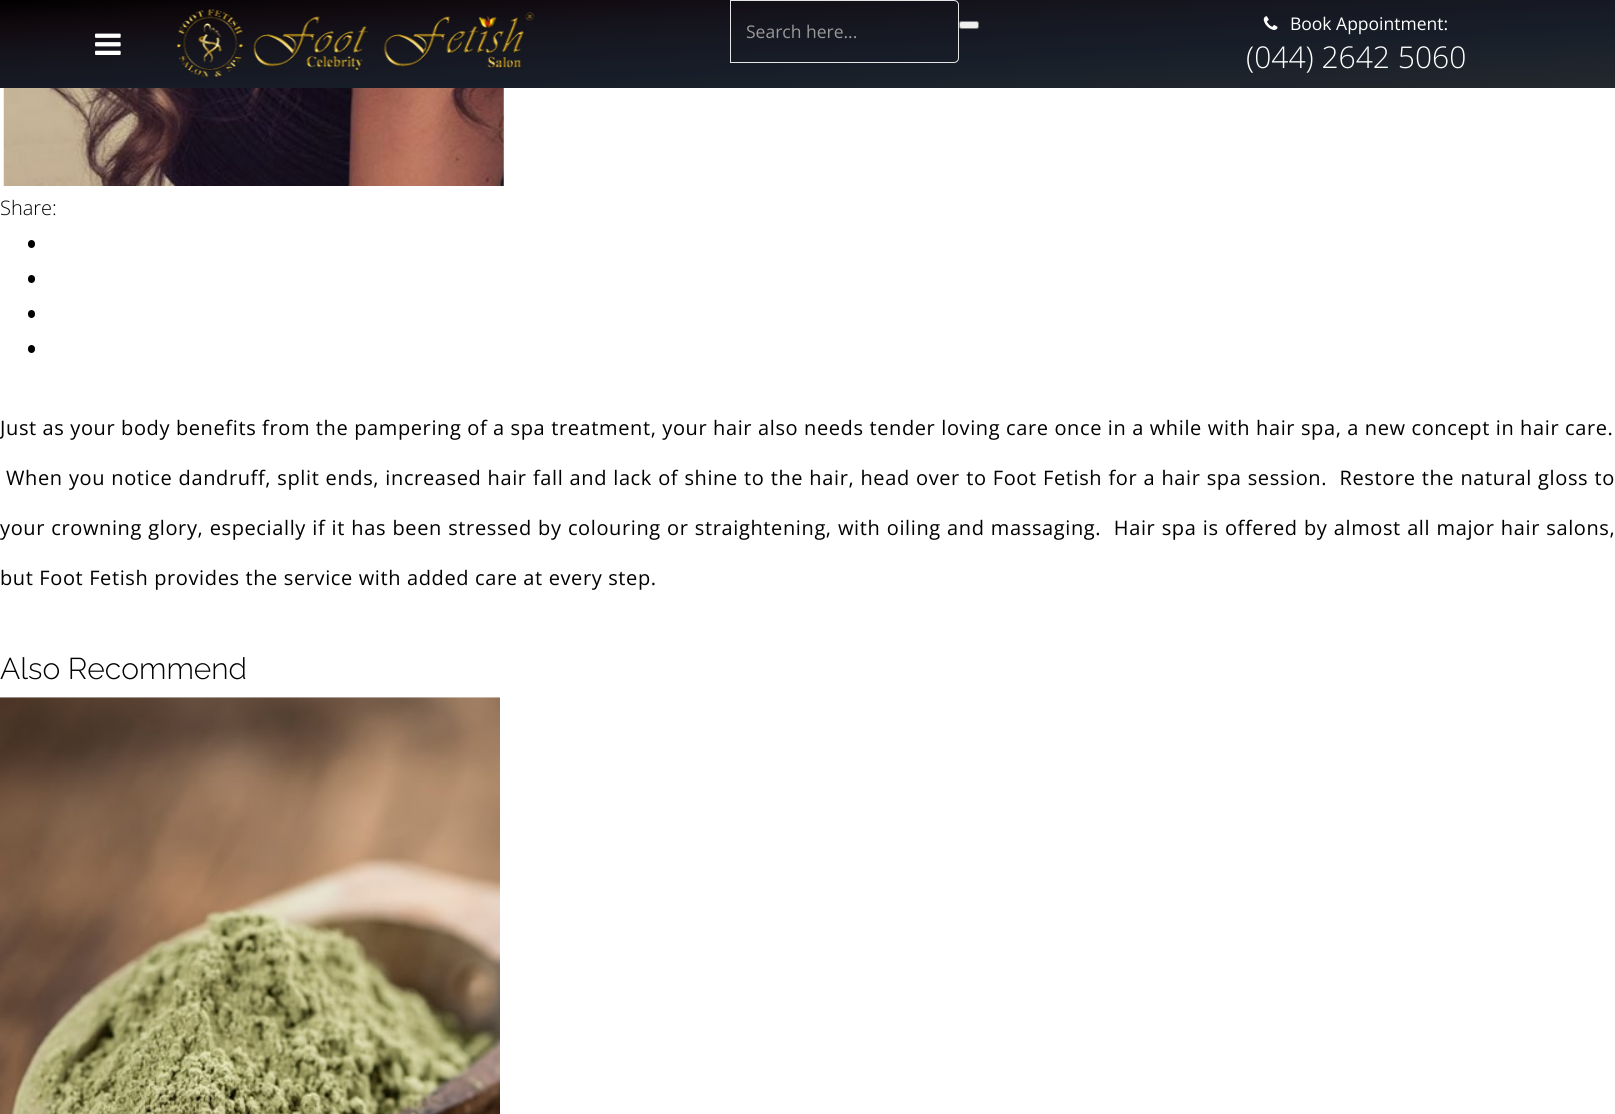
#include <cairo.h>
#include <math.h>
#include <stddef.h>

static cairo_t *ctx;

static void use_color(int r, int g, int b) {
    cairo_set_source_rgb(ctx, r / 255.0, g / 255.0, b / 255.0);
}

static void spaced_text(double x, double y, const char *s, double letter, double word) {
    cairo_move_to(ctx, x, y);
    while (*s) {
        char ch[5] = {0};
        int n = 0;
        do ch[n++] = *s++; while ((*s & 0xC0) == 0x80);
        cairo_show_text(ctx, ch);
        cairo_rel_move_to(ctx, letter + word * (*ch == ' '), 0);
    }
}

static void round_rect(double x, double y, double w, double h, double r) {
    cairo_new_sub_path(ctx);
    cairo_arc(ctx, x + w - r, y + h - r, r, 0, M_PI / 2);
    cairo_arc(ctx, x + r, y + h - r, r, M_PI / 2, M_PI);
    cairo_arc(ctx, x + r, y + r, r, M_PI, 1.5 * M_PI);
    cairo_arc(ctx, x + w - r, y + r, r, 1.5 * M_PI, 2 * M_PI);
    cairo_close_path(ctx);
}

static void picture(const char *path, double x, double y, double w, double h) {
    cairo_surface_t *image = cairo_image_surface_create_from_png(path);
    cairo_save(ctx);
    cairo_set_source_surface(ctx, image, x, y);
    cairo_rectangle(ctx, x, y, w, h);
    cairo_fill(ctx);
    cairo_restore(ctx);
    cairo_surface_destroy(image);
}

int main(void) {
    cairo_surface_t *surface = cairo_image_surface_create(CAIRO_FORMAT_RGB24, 1615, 1114);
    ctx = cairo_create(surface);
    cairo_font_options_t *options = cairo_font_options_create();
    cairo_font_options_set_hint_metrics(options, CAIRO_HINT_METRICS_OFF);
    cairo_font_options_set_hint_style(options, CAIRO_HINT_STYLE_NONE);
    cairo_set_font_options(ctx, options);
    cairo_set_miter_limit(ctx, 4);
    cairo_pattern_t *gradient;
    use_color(255, 255, 255);
    cairo_paint(ctx);
    gradient = cairo_pattern_create_linear(803, -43, 812, 131);
    cairo_pattern_add_color_stop_rgba(gradient, 0, 0, 0, 0, 1);
    cairo_pattern_add_color_stop_rgba(gradient, 0.09, 0.039, 0.02, 0.031, 1);
    cairo_pattern_add_color_stop_rgba(gradient, 0.18, 0.067, 0.043, 0.063, 1);
    cairo_pattern_add_color_stop_rgba(gradient, 0.27, 0.078, 0.063, 0.094, 1);
    cairo_pattern_add_color_stop_rgba(gradient, 0.36, 0.082, 0.082, 0.118, 1);
    cairo_pattern_add_color_stop_rgba(gradient, 0.45, 0.086, 0.094, 0.133, 1);
    cairo_pattern_add_color_stop_rgba(gradient, 0.55, 0.09, 0.106, 0.145, 1);
    cairo_pattern_add_color_stop_rgba(gradient, 0.64, 0.09, 0.118, 0.161, 1);
    cairo_pattern_add_color_stop_rgba(gradient, 0.73, 0.102, 0.129, 0.165, 1);
    cairo_pattern_add_color_stop_rgba(gradient, 0.82, 0.118, 0.141, 0.173, 1);
    cairo_pattern_add_color_stop_rgba(gradient, 0.91, 0.129, 0.149, 0.176, 1);
    cairo_pattern_add_color_stop_rgba(gradient, 1, 0.145, 0.161, 0.18, 1);
    cairo_set_source(ctx, gradient);
    cairo_pattern_destroy(gradient);
    cairo_rectangle(ctx, 0, 0, 1615, 88);
    cairo_fill(ctx);
    picture("img1.png", 177, 9, 358, 69);
    cairo_new_path(ctx);
    cairo_move_to(ctx, 730.5, 0.5);
    cairo_line_to(ctx, 954, 0.5);
    cairo_curve_to(ctx, 956.5, 0.5, 958.5, 2.5, 958.5, 5);
    cairo_line_to(ctx, 958.5, 58);
    cairo_curve_to(ctx, 958.5, 60.5, 956.5, 62.5, 954, 62.5);
    cairo_line_to(ctx, 730.5, 62.5);
    cairo_close_path(ctx);
    use_color(229, 229, 229);
    cairo_set_line_width(ctx, 1);
    cairo_stroke(ctx);
    cairo_select_font_face(ctx, "Open Sans", CAIRO_FONT_SLANT_NORMAL, CAIRO_FONT_WEIGHT_NORMAL);
    cairo_set_font_size(ctx, 17.5);
    use_color(153, 153, 153);
    cairo_move_to(ctx, 746, 38);
    cairo_show_text(ctx, "Search here...");
    use_color(239, 239, 239);
    round_rect(959.5, 21.5, 19, 7, 2);
    cairo_fill_preserve(ctx);
    use_color(118, 118, 118);
    cairo_stroke(ctx);
    picture("img2.png", 1263, 16, 15, 14);
    use_color(255, 255, 255);
    cairo_move_to(ctx, 1290, 30);
    cairo_show_text(ctx, "Book Appointment:");
    cairo_select_font_face(ctx, "Open Sans Light", CAIRO_FONT_SLANT_NORMAL, CAIRO_FONT_WEIGHT_NORMAL);
    cairo_set_font_size(ctx, 30);
    cairo_move_to(ctx, 1246, 68);
    cairo_show_text(ctx, "(044) 2642 5060");
    picture("img3.png", 95, 33, 26, 22);
    picture("img4.png", 3, 88, 501, 98);
    cairo_set_font_size(ctx, 20);
    use_color(0, 0, 0);
    cairo_move_to(ctx, 0, 215);
    cairo_show_text(ctx, "Share:");
    round_rect(28, 240, 7, 8, 3.5);
    cairo_fill(ctx);
    round_rect(28, 275, 7, 8, 3.5);
    cairo_fill(ctx);
    round_rect(28, 310, 7, 8, 3.5);
    cairo_fill(ctx);
    round_rect(28, 345, 7, 8, 3.5);
    cairo_fill(ctx);
    cairo_select_font_face(ctx, "Open Sans", CAIRO_FONT_SLANT_NORMAL, CAIRO_FONT_WEIGHT_NORMAL);
    spaced_text(0, 435, "Just as your body benefits from the pampering of a spa treatment, your hair also needs tender loving care once in a while with hair spa, a new concept in hair care.", 0.62, 0);
    spaced_text(6, 485, "When you notice dandruff, split ends, increased hair fall and lack of shine to the hair, head over to Foot Fetish for a hair spa session.  Restore the natural gloss to", 0.62, 0.4);
    spaced_text(0, 535, "your crowning glory, especially if it has been stressed by colouring or straightening, with oiling and massaging.  Hair spa is offered by almost all major hair salons,", 0.62, 0.5);
    spaced_text(0, 585, "but Foot Fetish provides the service with added care at every step.", 0.62, 0);
    cairo_select_font_face(ctx, "Raleway Light", CAIRO_FONT_SLANT_NORMAL, CAIRO_FONT_WEIGHT_NORMAL);
    cairo_set_font_size(ctx, 30);
    cairo_move_to(ctx, 0, 679);
    cairo_show_text(ctx, "Also Recommend");
    picture("img5.png", 0, 697, 500, 417);
    cairo_surface_write_to_png(surface, "result.png");
    cairo_font_options_destroy(options);
    cairo_destroy(ctx);
    cairo_surface_destroy(surface);
    return 0;
}
